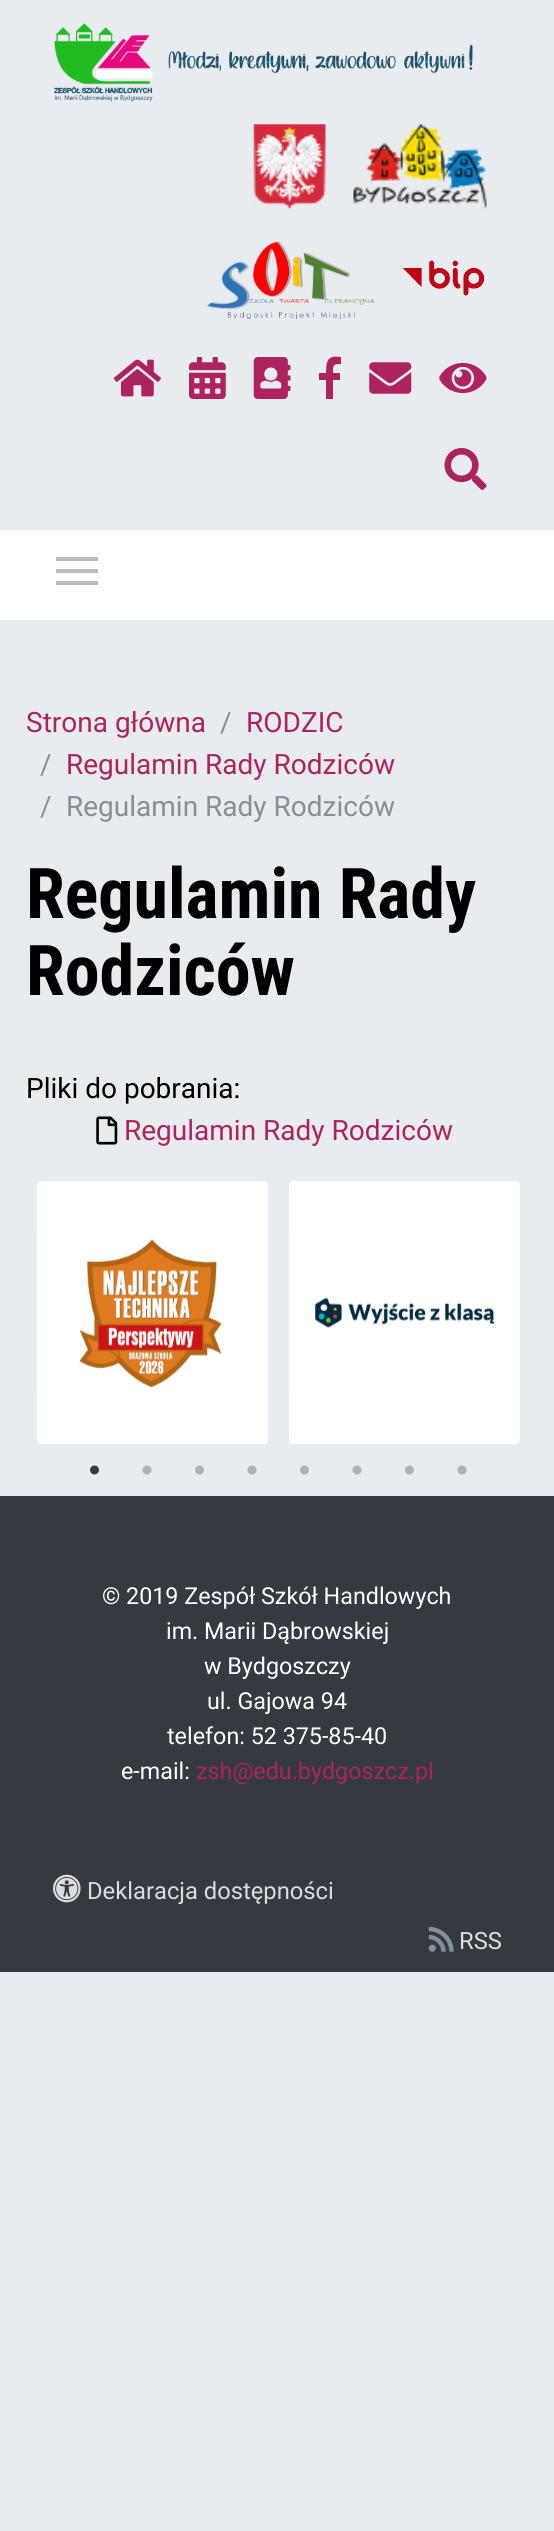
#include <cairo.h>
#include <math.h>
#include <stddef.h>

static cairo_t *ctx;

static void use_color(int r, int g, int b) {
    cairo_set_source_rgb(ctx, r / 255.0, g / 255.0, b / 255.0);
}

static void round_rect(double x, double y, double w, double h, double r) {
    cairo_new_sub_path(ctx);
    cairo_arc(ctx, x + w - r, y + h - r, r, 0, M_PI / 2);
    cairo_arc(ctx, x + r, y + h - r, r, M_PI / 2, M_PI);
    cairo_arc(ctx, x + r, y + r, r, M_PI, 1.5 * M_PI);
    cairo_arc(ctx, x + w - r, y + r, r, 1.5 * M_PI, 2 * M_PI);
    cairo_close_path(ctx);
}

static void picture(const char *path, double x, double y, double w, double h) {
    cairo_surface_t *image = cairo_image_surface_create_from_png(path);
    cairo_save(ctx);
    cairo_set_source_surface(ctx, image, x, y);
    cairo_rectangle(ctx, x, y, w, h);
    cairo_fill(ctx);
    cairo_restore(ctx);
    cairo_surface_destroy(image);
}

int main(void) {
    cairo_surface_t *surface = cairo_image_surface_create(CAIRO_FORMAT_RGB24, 554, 2531);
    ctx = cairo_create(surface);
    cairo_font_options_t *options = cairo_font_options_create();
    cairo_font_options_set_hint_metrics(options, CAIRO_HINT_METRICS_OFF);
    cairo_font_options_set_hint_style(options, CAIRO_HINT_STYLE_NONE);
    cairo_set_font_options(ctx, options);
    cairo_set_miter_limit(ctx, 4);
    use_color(233, 236, 239);
    cairo_paint(ctx);
    picture("img1.png", 54, 23, 419, 79);
    picture("img2.png", 253, 124, 73, 85);
    picture("img3.png", 353, 124, 134, 85);
    picture("img4.png", 206, 241, 169, 79);
    picture("img5.png", 402, 260, 83, 36);
    picture("img6.png", 113, 359, 48, 38);
    picture("img7.png", 189, 357, 37, 42);
    picture("img8.png", 253, 357, 38, 42);
    use_color(173, 35, 94);
    cairo_new_path(ctx);
    cairo_move_to(ctx, 326, 399);
    cairo_line_to(ctx, 326, 380);
    cairo_line_to(ctx, 319, 380);
    cairo_line_to(ctx, 319, 373);
    cairo_line_to(ctx, 326, 373);
    cairo_curve_to(ctx, 326, 360, 328, 355, 341, 357);
    cairo_line_to(ctx, 341, 364);
    cairo_curve_to(ctx, 333, 364, 333, 365, 333, 373);
    cairo_line_to(ctx, 340, 373);
    cairo_line_to(ctx, 340, 380);
    cairo_line_to(ctx, 333, 380);
    cairo_line_to(ctx, 333, 399);
    cairo_fill(ctx);
    picture("img9.png", 369, 362, 43, 32);
    picture("img10.png", 439, 362, 48, 32);
    picture("img11.png", 444, 448, 43, 42);
    use_color(255, 255, 255);
    cairo_rectangle(ctx, 0, 530, 554, 90);
    cairo_fill(ctx);
    use_color(187, 187, 187);
    cairo_rectangle(ctx, 56, 569, 42, 4);
    cairo_fill(ctx);
    cairo_rectangle(ctx, 56, 557, 42, 4);
    cairo_fill(ctx);
    cairo_rectangle(ctx, 56, 581, 42, 4);
    cairo_fill(ctx);
    cairo_select_font_face(ctx, "Roboto", CAIRO_FONT_SLANT_NORMAL, CAIRO_FONT_WEIGHT_NORMAL);
    cairo_set_font_size(ctx, 28);
    use_color(173, 35, 94);
    cairo_move_to(ctx, 26, 732);
    cairo_show_text(ctx, "Strona główna");
    use_color(134, 142, 150);
    cairo_move_to(ctx, 220, 732);
    cairo_show_text(ctx, "/");
    use_color(173, 35, 94);
    cairo_move_to(ctx, 246, 732);
    cairo_show_text(ctx, "RODZIC");
    use_color(134, 142, 150);
    cairo_move_to(ctx, 40, 774);
    cairo_show_text(ctx, "/");
    use_color(173, 35, 94);
    cairo_move_to(ctx, 66, 774);
    cairo_show_text(ctx, "Regulamin Rady Rodziców");
    use_color(134, 142, 150);
    cairo_move_to(ctx, 40, 816);
    cairo_show_text(ctx, "/");
    cairo_move_to(ctx, 66, 816);
    cairo_show_text(ctx, "Regulamin Rady Rodziców");
    cairo_select_font_face(ctx, "Roboto Condensed", CAIRO_FONT_SLANT_NORMAL, CAIRO_FONT_WEIGHT_BOLD);
    cairo_set_font_size(ctx, 70);
    use_color(0, 0, 0);
    cairo_move_to(ctx, 26, 918);
    cairo_show_text(ctx, "Regulamin Rady");
    cairo_move_to(ctx, 26, 995);
    cairo_show_text(ctx, "Rodziców");
    cairo_select_font_face(ctx, "Roboto", CAIRO_FONT_SLANT_NORMAL, CAIRO_FONT_WEIGHT_NORMAL);
    cairo_set_font_size(ctx, 28);
    cairo_move_to(ctx, 26, 1098);
    cairo_show_text(ctx, "Pliki do pobrania:");
    picture("img12.png", 96, 1116, 22, 29);
    use_color(173, 35, 94);
    cairo_move_to(ctx, 124, 1140);
    cairo_show_text(ctx, "Regulamin Rady Rodziców");
    use_color(255, 255, 255);
    round_rect(37, 1181, 231, 263, 5);
    cairo_fill(ctx);
    picture("img13.png", 36, 1234, 186, 156);
    round_rect(289, 1181, 231, 263, 5);
    cairo_fill(ctx);
    picture("img14.png", 288, 1234, 207, 156);
    picture("img15.png", 90, 1465, 9, 10);
    picture("img16.png", 142, 1465, 10, 10);
    picture("img17.png", 195, 1465, 9, 10);
    picture("img16.png", 247, 1465, 10, 10);
    picture("img17.png", 300, 1465, 9, 10);
    picture("img16.png", 352, 1465, 10, 10);
    picture("img17.png", 405, 1465, 9, 10);
    picture("img16.png", 457, 1465, 10, 10);
    use_color(52, 58, 64);
    cairo_rectangle(ctx, 0, 1496, 554, 476);
    cairo_fill(ctx);
    cairo_set_font_size(ctx, 23.3);
    use_color(255, 255, 255);
    cairo_move_to(ctx, 102, 1604);
    cairo_show_text(ctx, "© 2019 Zespół Szkół Handlowych");
    cairo_move_to(ctx, 166, 1639);
    cairo_show_text(ctx, "im. Marii Dąbrowskiej");
    cairo_move_to(ctx, 204, 1674);
    cairo_show_text(ctx, "w Bydgoszczy");
    cairo_move_to(ctx, 207, 1709);
    cairo_show_text(ctx, "ul. Gajowa 94");
    cairo_move_to(ctx, 167, 1744);
    cairo_show_text(ctx, "telefon: 52 375-85-40");
    cairo_move_to(ctx, 121, 1779);
    cairo_show_text(ctx, "e-mail:");
    use_color(173, 35, 94);
    cairo_move_to(ctx, 196, 1779);
    cairo_show_text(ctx, "zsh@edu.bydgoszcz.pl");
    picture("img18.png", 52, 1874, 29, 29);
    cairo_set_font_size(ctx, 23.75);
    use_color(221, 221, 221);
    cairo_move_to(ctx, 87, 1899);
    cairo_show_text(ctx, "Deklaracja dostępności");
    picture("img19.png", 428, 1926, 26, 26);
    cairo_move_to(ctx, 459, 1949);
    cairo_show_text(ctx, "RSS");
    cairo_surface_write_to_png(surface, "result.png");
    cairo_font_options_destroy(options);
    cairo_destroy(ctx);
    cairo_surface_destroy(surface);
    return 0;
}
